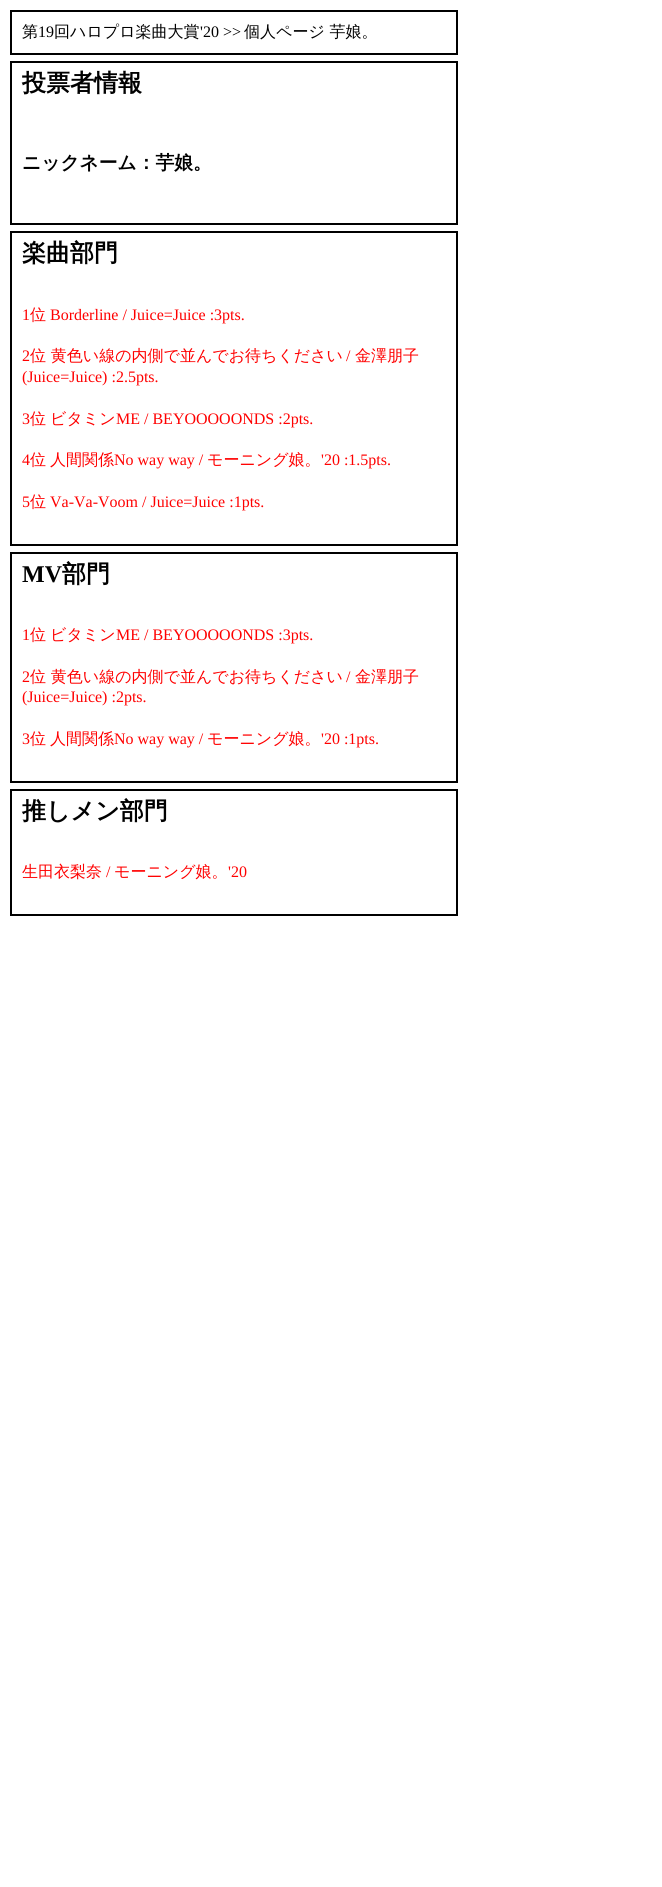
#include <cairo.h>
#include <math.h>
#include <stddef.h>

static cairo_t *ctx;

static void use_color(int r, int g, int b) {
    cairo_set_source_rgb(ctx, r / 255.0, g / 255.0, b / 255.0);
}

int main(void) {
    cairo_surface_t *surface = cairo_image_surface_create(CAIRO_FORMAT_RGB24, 662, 1887);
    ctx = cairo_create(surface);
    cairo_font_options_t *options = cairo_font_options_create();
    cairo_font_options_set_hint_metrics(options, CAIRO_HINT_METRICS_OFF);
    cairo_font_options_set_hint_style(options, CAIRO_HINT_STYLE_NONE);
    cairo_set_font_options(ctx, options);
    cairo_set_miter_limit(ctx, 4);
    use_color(255, 255, 255);
    cairo_paint(ctx);
    cairo_rectangle(ctx, 10.5, 10.5, 447, 44);
    use_color(0, 0, 0);
    cairo_set_line_width(ctx, 1);
    cairo_stroke(ctx);
    cairo_rectangle(ctx, 11.5, 11.5, 445, 42);
    cairo_stroke(ctx);
    cairo_select_font_face(ctx, "WenQuanYi Zen Hei Medium", CAIRO_FONT_SLANT_NORMAL, CAIRO_FONT_WEIGHT_NORMAL);
    cairo_set_font_size(ctx, 16);
    cairo_move_to(ctx, 22, 37);
    cairo_show_text(ctx, "第");
    cairo_select_font_face(ctx, "Liberation Serif", CAIRO_FONT_SLANT_NORMAL, CAIRO_FONT_WEIGHT_NORMAL);
    cairo_move_to(ctx, 38, 37);
    cairo_show_text(ctx, "19");
    cairo_select_font_face(ctx, "WenQuanYi Zen Hei Medium", CAIRO_FONT_SLANT_NORMAL, CAIRO_FONT_WEIGHT_NORMAL);
    cairo_move_to(ctx, 54, 37);
    cairo_show_text(ctx, "回ハロプロ楽曲大賞");
    cairo_select_font_face(ctx, "Liberation Serif", CAIRO_FONT_SLANT_NORMAL, CAIRO_FONT_WEIGHT_NORMAL);
    cairo_move_to(ctx, 200, 37);
    cairo_show_text(ctx, "'20 >>");
    cairo_select_font_face(ctx, "WenQuanYi Zen Hei Medium", CAIRO_FONT_SLANT_NORMAL, CAIRO_FONT_WEIGHT_NORMAL);
    cairo_move_to(ctx, 244, 37);
    cairo_show_text(ctx, "個人ページ 芋娘。");
    cairo_rectangle(ctx, 10.5, 61.5, 447, 163);
    cairo_stroke(ctx);
    cairo_rectangle(ctx, 11.5, 62.5, 445, 161);
    cairo_stroke(ctx);
    cairo_select_font_face(ctx, "WenQuanYi Zen Hei", CAIRO_FONT_SLANT_NORMAL, CAIRO_FONT_WEIGHT_BOLD);
    cairo_set_font_size(ctx, 24);
    cairo_move_to(ctx, 22, 91);
    cairo_show_text(ctx, "投票者情報");
    cairo_set_font_size(ctx, 18.75);
    cairo_move_to(ctx, 22, 169);
    cairo_show_text(ctx, "ニックネーム：芋娘。");
    cairo_rectangle(ctx, 10.5, 231.5, 447, 314);
    cairo_stroke(ctx);
    cairo_rectangle(ctx, 11.5, 232.5, 445, 312);
    cairo_stroke(ctx);
    cairo_set_font_size(ctx, 24);
    cairo_move_to(ctx, 22, 261);
    cairo_show_text(ctx, "楽曲部門");
    cairo_select_font_face(ctx, "Liberation Serif", CAIRO_FONT_SLANT_NORMAL, CAIRO_FONT_WEIGHT_NORMAL);
    cairo_set_font_size(ctx, 16);
    use_color(255, 0, 0);
    cairo_move_to(ctx, 22, 320);
    cairo_show_text(ctx, "1");
    cairo_select_font_face(ctx, "WenQuanYi Zen Hei Medium", CAIRO_FONT_SLANT_NORMAL, CAIRO_FONT_WEIGHT_NORMAL);
    cairo_move_to(ctx, 30, 320);
    cairo_show_text(ctx, "位");
    cairo_select_font_face(ctx, "Liberation Serif", CAIRO_FONT_SLANT_NORMAL, CAIRO_FONT_WEIGHT_NORMAL);
    cairo_move_to(ctx, 50, 320);
    cairo_show_text(ctx, "Borderline / Juice=Juice :3pts.");
    cairo_move_to(ctx, 22, 361);
    cairo_show_text(ctx, "2");
    cairo_select_font_face(ctx, "WenQuanYi Zen Hei Medium", CAIRO_FONT_SLANT_NORMAL, CAIRO_FONT_WEIGHT_NORMAL);
    cairo_move_to(ctx, 30, 361);
    cairo_show_text(ctx, "位 黄色い線の内側で並んでお待ちください");
    cairo_select_font_face(ctx, "Liberation Serif", CAIRO_FONT_SLANT_NORMAL, CAIRO_FONT_WEIGHT_NORMAL);
    cairo_move_to(ctx, 346, 361);
    cairo_show_text(ctx, "/");
    cairo_select_font_face(ctx, "WenQuanYi Zen Hei Medium", CAIRO_FONT_SLANT_NORMAL, CAIRO_FONT_WEIGHT_NORMAL);
    cairo_move_to(ctx, 355, 361);
    cairo_show_text(ctx, "金澤朋子");
    cairo_select_font_face(ctx, "Liberation Serif", CAIRO_FONT_SLANT_NORMAL, CAIRO_FONT_WEIGHT_NORMAL);
    cairo_move_to(ctx, 22, 382);
    cairo_show_text(ctx, "(Juice=Juice) :2.5pts.");
    cairo_move_to(ctx, 22, 424);
    cairo_show_text(ctx, "3");
    cairo_select_font_face(ctx, "WenQuanYi Zen Hei Medium", CAIRO_FONT_SLANT_NORMAL, CAIRO_FONT_WEIGHT_NORMAL);
    cairo_move_to(ctx, 30, 424);
    cairo_show_text(ctx, "位");
    cairo_move_to(ctx, 50, 424);
    cairo_show_text(ctx, "ビタミン");
    cairo_select_font_face(ctx, "Liberation Serif", CAIRO_FONT_SLANT_NORMAL, CAIRO_FONT_WEIGHT_NORMAL);
    cairo_move_to(ctx, 116, 424);
    cairo_show_text(ctx, "ME / BEYOOOOONDS :2pts.");
    cairo_move_to(ctx, 22, 465);
    cairo_show_text(ctx, "4");
    cairo_select_font_face(ctx, "WenQuanYi Zen Hei Medium", CAIRO_FONT_SLANT_NORMAL, CAIRO_FONT_WEIGHT_NORMAL);
    cairo_move_to(ctx, 30, 465);
    cairo_show_text(ctx, "位");
    cairo_move_to(ctx, 50, 465);
    cairo_show_text(ctx, "人間関係");
    cairo_select_font_face(ctx, "Liberation Serif", CAIRO_FONT_SLANT_NORMAL, CAIRO_FONT_WEIGHT_NORMAL);
    cairo_move_to(ctx, 114, 465);
    cairo_show_text(ctx, "No way way /");
    cairo_select_font_face(ctx, "WenQuanYi Zen Hei Medium", CAIRO_FONT_SLANT_NORMAL, CAIRO_FONT_WEIGHT_NORMAL);
    cairo_move_to(ctx, 207, 465);
    cairo_show_text(ctx, "モーニング娘。");
    cairo_select_font_face(ctx, "Liberation Serif", CAIRO_FONT_SLANT_NORMAL, CAIRO_FONT_WEIGHT_NORMAL);
    cairo_move_to(ctx, 321, 465);
    cairo_show_text(ctx, "'20 :1.5pts.");
    cairo_move_to(ctx, 22, 507);
    cairo_show_text(ctx, "5");
    cairo_select_font_face(ctx, "WenQuanYi Zen Hei Medium", CAIRO_FONT_SLANT_NORMAL, CAIRO_FONT_WEIGHT_NORMAL);
    cairo_move_to(ctx, 30, 507);
    cairo_show_text(ctx, "位");
    cairo_select_font_face(ctx, "Liberation Serif", CAIRO_FONT_SLANT_NORMAL, CAIRO_FONT_WEIGHT_NORMAL);
    cairo_move_to(ctx, 50, 507);
    cairo_show_text(ctx, "Va-Va-Voom / Juice=Juice :1pts.");
    cairo_rectangle(ctx, 10.5, 552.5, 447, 230);
    use_color(0, 0, 0);
    cairo_stroke(ctx);
    cairo_rectangle(ctx, 11.5, 553.5, 445, 228);
    cairo_stroke(ctx);
    cairo_select_font_face(ctx, "Liberation Serif", CAIRO_FONT_SLANT_NORMAL, CAIRO_FONT_WEIGHT_BOLD);
    cairo_set_font_size(ctx, 24);
    cairo_move_to(ctx, 22, 582);
    cairo_show_text(ctx, "MV");
    cairo_select_font_face(ctx, "WenQuanYi Zen Hei", CAIRO_FONT_SLANT_NORMAL, CAIRO_FONT_WEIGHT_BOLD);
    cairo_move_to(ctx, 62, 582);
    cairo_show_text(ctx, "部門");
    cairo_select_font_face(ctx, "Liberation Serif", CAIRO_FONT_SLANT_NORMAL, CAIRO_FONT_WEIGHT_NORMAL);
    cairo_set_font_size(ctx, 16);
    use_color(255, 0, 0);
    cairo_move_to(ctx, 22, 640);
    cairo_show_text(ctx, "1");
    cairo_select_font_face(ctx, "WenQuanYi Zen Hei Medium", CAIRO_FONT_SLANT_NORMAL, CAIRO_FONT_WEIGHT_NORMAL);
    cairo_move_to(ctx, 30, 640);
    cairo_show_text(ctx, "位");
    cairo_move_to(ctx, 50, 640);
    cairo_show_text(ctx, "ビタミン");
    cairo_select_font_face(ctx, "Liberation Serif", CAIRO_FONT_SLANT_NORMAL, CAIRO_FONT_WEIGHT_NORMAL);
    cairo_move_to(ctx, 116, 640);
    cairo_show_text(ctx, "ME / BEYOOOOONDS :3pts.");
    cairo_move_to(ctx, 22, 682);
    cairo_show_text(ctx, "2");
    cairo_select_font_face(ctx, "WenQuanYi Zen Hei Medium", CAIRO_FONT_SLANT_NORMAL, CAIRO_FONT_WEIGHT_NORMAL);
    cairo_move_to(ctx, 30, 682);
    cairo_show_text(ctx, "位 黄色い線の内側で並んでお待ちください");
    cairo_select_font_face(ctx, "Liberation Serif", CAIRO_FONT_SLANT_NORMAL, CAIRO_FONT_WEIGHT_NORMAL);
    cairo_move_to(ctx, 346, 682);
    cairo_show_text(ctx, "/");
    cairo_select_font_face(ctx, "WenQuanYi Zen Hei Medium", CAIRO_FONT_SLANT_NORMAL, CAIRO_FONT_WEIGHT_NORMAL);
    cairo_move_to(ctx, 355, 682);
    cairo_show_text(ctx, "金澤朋子");
    cairo_select_font_face(ctx, "Liberation Serif", CAIRO_FONT_SLANT_NORMAL, CAIRO_FONT_WEIGHT_NORMAL);
    cairo_move_to(ctx, 22, 702);
    cairo_show_text(ctx, "(Juice=Juice) :2pts.");
    cairo_move_to(ctx, 22, 744);
    cairo_show_text(ctx, "3");
    cairo_select_font_face(ctx, "WenQuanYi Zen Hei Medium", CAIRO_FONT_SLANT_NORMAL, CAIRO_FONT_WEIGHT_NORMAL);
    cairo_move_to(ctx, 30, 744);
    cairo_show_text(ctx, "位");
    cairo_move_to(ctx, 50, 744);
    cairo_show_text(ctx, "人間関係");
    cairo_select_font_face(ctx, "Liberation Serif", CAIRO_FONT_SLANT_NORMAL, CAIRO_FONT_WEIGHT_NORMAL);
    cairo_move_to(ctx, 114, 744);
    cairo_show_text(ctx, "No way way /");
    cairo_select_font_face(ctx, "WenQuanYi Zen Hei Medium", CAIRO_FONT_SLANT_NORMAL, CAIRO_FONT_WEIGHT_NORMAL);
    cairo_move_to(ctx, 207, 744);
    cairo_show_text(ctx, "モーニング娘。");
    cairo_select_font_face(ctx, "Liberation Serif", CAIRO_FONT_SLANT_NORMAL, CAIRO_FONT_WEIGHT_NORMAL);
    cairo_move_to(ctx, 321, 744);
    cairo_show_text(ctx, "'20 :1pts.");
    cairo_rectangle(ctx, 10.5, 789.5, 447, 126);
    use_color(0, 0, 0);
    cairo_stroke(ctx);
    cairo_rectangle(ctx, 11.5, 790.5, 445, 124);
    cairo_stroke(ctx);
    cairo_select_font_face(ctx, "WenQuanYi Zen Hei", CAIRO_FONT_SLANT_NORMAL, CAIRO_FONT_WEIGHT_BOLD);
    cairo_set_font_size(ctx, 24);
    cairo_move_to(ctx, 22, 819);
    cairo_show_text(ctx, "推しメン部門");
    cairo_select_font_face(ctx, "WenQuanYi Zen Hei Medium", CAIRO_FONT_SLANT_NORMAL, CAIRO_FONT_WEIGHT_NORMAL);
    cairo_set_font_size(ctx, 16);
    use_color(255, 0, 0);
    cairo_move_to(ctx, 22, 877);
    cairo_show_text(ctx, "生田衣梨奈");
    cairo_select_font_face(ctx, "Liberation Serif", CAIRO_FONT_SLANT_NORMAL, CAIRO_FONT_WEIGHT_NORMAL);
    cairo_move_to(ctx, 106, 877);
    cairo_show_text(ctx, "/");
    cairo_select_font_face(ctx, "WenQuanYi Zen Hei Medium", CAIRO_FONT_SLANT_NORMAL, CAIRO_FONT_WEIGHT_NORMAL);
    cairo_move_to(ctx, 114, 877);
    cairo_show_text(ctx, "モーニング娘。");
    cairo_select_font_face(ctx, "Liberation Serif", CAIRO_FONT_SLANT_NORMAL, CAIRO_FONT_WEIGHT_NORMAL);
    cairo_move_to(ctx, 228, 877);
    cairo_show_text(ctx, "'20");
    cairo_surface_write_to_png(surface, "result.png");
    cairo_font_options_destroy(options);
    cairo_destroy(ctx);
    cairo_surface_destroy(surface);
    return 0;
}
